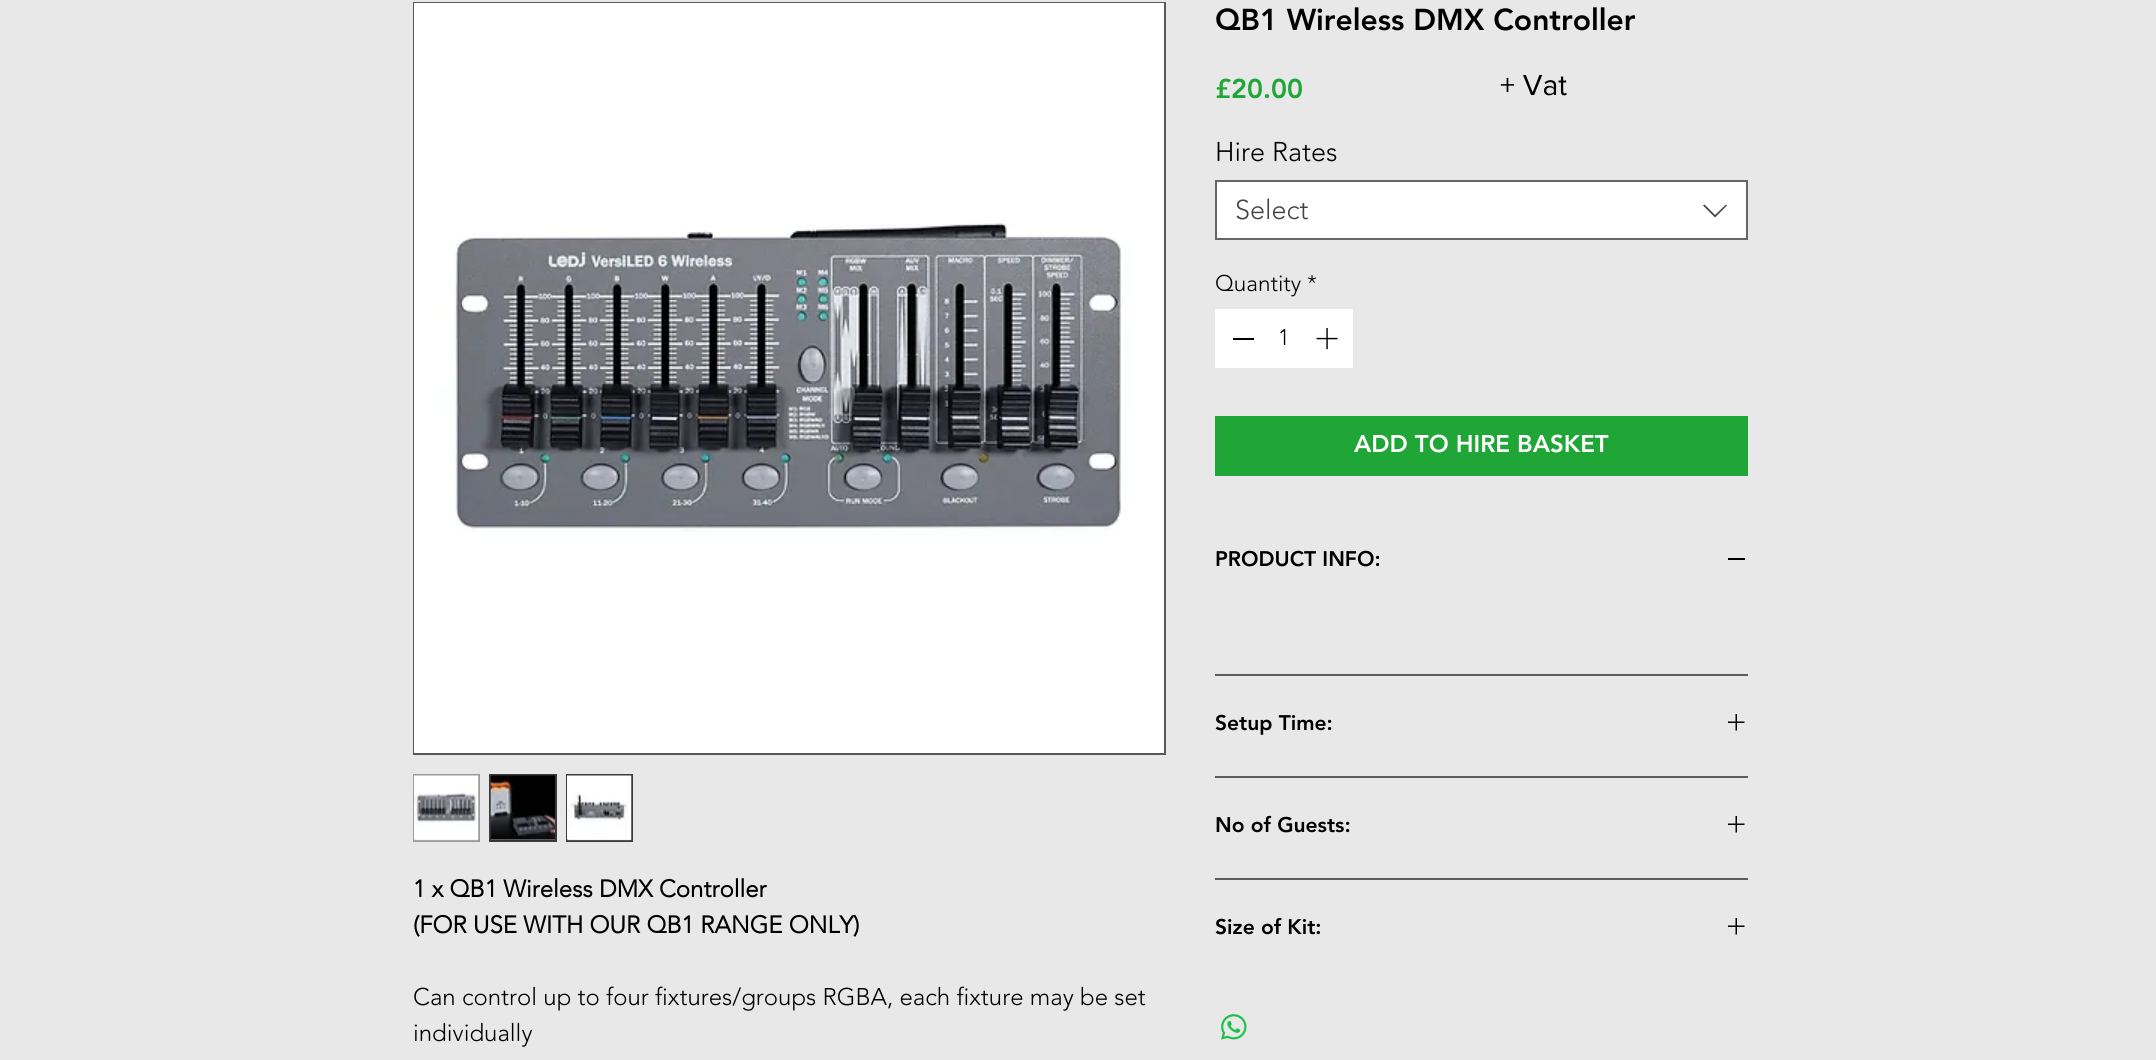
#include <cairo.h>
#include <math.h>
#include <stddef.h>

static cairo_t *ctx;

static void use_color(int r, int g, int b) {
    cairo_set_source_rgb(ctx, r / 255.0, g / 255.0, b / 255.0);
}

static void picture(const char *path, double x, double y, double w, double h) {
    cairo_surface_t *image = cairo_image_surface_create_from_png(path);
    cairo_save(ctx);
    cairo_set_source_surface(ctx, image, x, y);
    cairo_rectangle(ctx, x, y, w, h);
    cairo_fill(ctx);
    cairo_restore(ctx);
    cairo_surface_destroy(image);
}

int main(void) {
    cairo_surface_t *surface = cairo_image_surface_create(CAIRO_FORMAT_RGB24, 2156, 1060);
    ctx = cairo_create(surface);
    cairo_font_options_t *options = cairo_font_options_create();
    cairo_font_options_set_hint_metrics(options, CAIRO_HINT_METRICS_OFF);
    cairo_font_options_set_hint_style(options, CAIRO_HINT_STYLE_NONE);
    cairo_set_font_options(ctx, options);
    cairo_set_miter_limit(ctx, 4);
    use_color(232, 232, 232);
    cairo_paint(ctx);
    cairo_select_font_face(ctx, "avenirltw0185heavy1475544 Black", CAIRO_FONT_SLANT_NORMAL, CAIRO_FONT_WEIGHT_NORMAL);
    cairo_set_font_size(ctx, 30);
    use_color(0, 0, 0);
    cairo_move_to(ctx, 1215, 30);
    cairo_show_text(ctx, "QB1 Wireless DMX Controller");
    cairo_set_font_size(ctx, 27);
    use_color(32, 166, 55);
    cairo_move_to(ctx, 1215, 98);
    cairo_show_text(ctx, "£20.00");
    cairo_select_font_face(ctx, "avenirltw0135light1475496 Light", CAIRO_FONT_SLANT_NORMAL, CAIRO_FONT_WEIGHT_NORMAL);
    use_color(0, 0, 0);
    cairo_move_to(ctx, 1215, 161);
    cairo_show_text(ctx, "Hire Rates");
    use_color(255, 255, 255);
    cairo_rectangle(ctx, 1216, 181, 531, 58);
    cairo_fill_preserve(ctx);
    use_color(102, 102, 102);
    cairo_stroke(ctx);
    use_color(68, 68, 68);
    cairo_move_to(ctx, 1235, 219);
    cairo_show_text(ctx, "Select");
    cairo_set_fill_rule(ctx, CAIRO_FILL_RULE_EVEN_ODD);
    cairo_new_path(ctx);
    cairo_move_to(ctx, 1726, 204.5);
    cairo_line_to(ctx, 1727, 205.5);
    cairo_line_to(ctx, 1715, 217.5);
    cairo_line_to(ctx, 1703, 205.5);
    cairo_line_to(ctx, 1704.5, 204.5);
    cairo_line_to(ctx, 1715, 215);
    cairo_close_path(ctx);
    cairo_fill(ctx);
    cairo_set_font_size(ctx, 22.5);
    use_color(0, 0, 0);
    cairo_move_to(ctx, 1215, 291);
    cairo_show_text(ctx, "Quantity *");
    use_color(255, 255, 255);
    cairo_rectangle(ctx, 1215, 309, 138, 59);
    cairo_fill(ctx);
    use_color(0, 0, 0);
    cairo_rectangle(ctx, 1233, 338, 21, 2);
    cairo_fill(ctx);
    cairo_move_to(ctx, 1278, 345);
    cairo_show_text(ctx, "1");
    picture("img1.png", 1316, 328, 22, 22);
    use_color(32, 166, 55);
    cairo_rectangle(ctx, 1215, 416, 533, 60);
    cairo_fill(ctx);
    cairo_select_font_face(ctx, "avenirltw0185heavy1475544 Black", CAIRO_FONT_SLANT_NORMAL, CAIRO_FONT_WEIGHT_NORMAL);
    cairo_set_font_size(ctx, 24);
    use_color(255, 255, 255);
    cairo_move_to(ctx, 1354, 452);
    cairo_show_text(ctx, "ADD TO HIRE BASKET");
    use_color(92, 92, 92);
    cairo_rectangle(ctx, 1215, 674, 533, 2);
    cairo_fill(ctx);
    cairo_set_font_size(ctx, 21);
    use_color(0, 0, 0);
    cairo_move_to(ctx, 1215, 566);
    cairo_show_text(ctx, "PRODUCT INFO:");
    cairo_rectangle(ctx, 1728, 558, 17, 2);
    cairo_fill(ctx);
    use_color(92, 92, 92);
    cairo_rectangle(ctx, 1215, 776, 533, 2);
    cairo_fill(ctx);
    use_color(0, 0, 0);
    cairo_move_to(ctx, 1215, 730);
    cairo_show_text(ctx, "Setup Time:");
    picture("img2.png", 1728, 714, 17, 17);
    use_color(92, 92, 92);
    cairo_rectangle(ctx, 1215, 878, 533, 2);
    cairo_fill(ctx);
    use_color(0, 0, 0);
    cairo_move_to(ctx, 1215, 832);
    cairo_show_text(ctx, "No of Guests:");
    picture("img2.png", 1728, 816, 17, 17);
    cairo_move_to(ctx, 1215, 934);
    cairo_show_text(ctx, "Size of Kit:");
    picture("img2.png", 1728, 918, 17, 17);
    picture("img3.png", 1221, 1014, 26, 26);
    cairo_rectangle(ctx, 414, 3, 751, 751);
    use_color(87, 87, 87);
    cairo_stroke(ctx);
    picture("img4.png", 414, 3, 750, 750);
    cairo_rectangle(ctx, 414, 775, 65, 66);
    use_color(155, 155, 155);
    cairo_stroke(ctx);
    picture("img5.png", 414, 775, 65, 66);
    cairo_rectangle(ctx, 490, 775, 66, 66);
    use_color(59, 59, 59);
    cairo_stroke(ctx);
    picture("img6.png", 490, 775, 65, 66);
    cairo_rectangle(ctx, 567, 775, 65, 66);
    cairo_stroke(ctx);
    picture("img7.png", 567, 775, 65, 66);
    cairo_select_font_face(ctx, "avenirltw0135light1475496", CAIRO_FONT_SLANT_NORMAL, CAIRO_FONT_WEIGHT_BOLD);
    cairo_set_font_size(ctx, 24);
    use_color(0, 0, 0);
    cairo_move_to(ctx, 413, 897);
    cairo_show_text(ctx, "1 x QB1 Wireless DMX Controller");
    cairo_move_to(ctx, 413, 933);
    cairo_show_text(ctx, "(FOR USE WITH OUR QB1 RANGE ONLY)");
    cairo_select_font_face(ctx, "avenirltw0135light1475496 Light", CAIRO_FONT_SLANT_NORMAL, CAIRO_FONT_WEIGHT_NORMAL);
    cairo_move_to(ctx, 413, 1005);
    cairo_show_text(ctx, "Can control up to four fixtures/groups RGBA, each fixture may be set");
    cairo_move_to(ctx, 413, 1041);
    cairo_show_text(ctx, "individually");
    cairo_select_font_face(ctx, "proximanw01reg", CAIRO_FONT_SLANT_NORMAL, CAIRO_FONT_WEIGHT_NORMAL);
    cairo_set_font_size(ctx, 30);
    cairo_move_to(ctx, 1500, 95);
    cairo_show_text(ctx, "+ Vat");
    cairo_surface_write_to_png(surface, "result.png");
    cairo_font_options_destroy(options);
    cairo_destroy(ctx);
    cairo_surface_destroy(surface);
    return 0;
}
